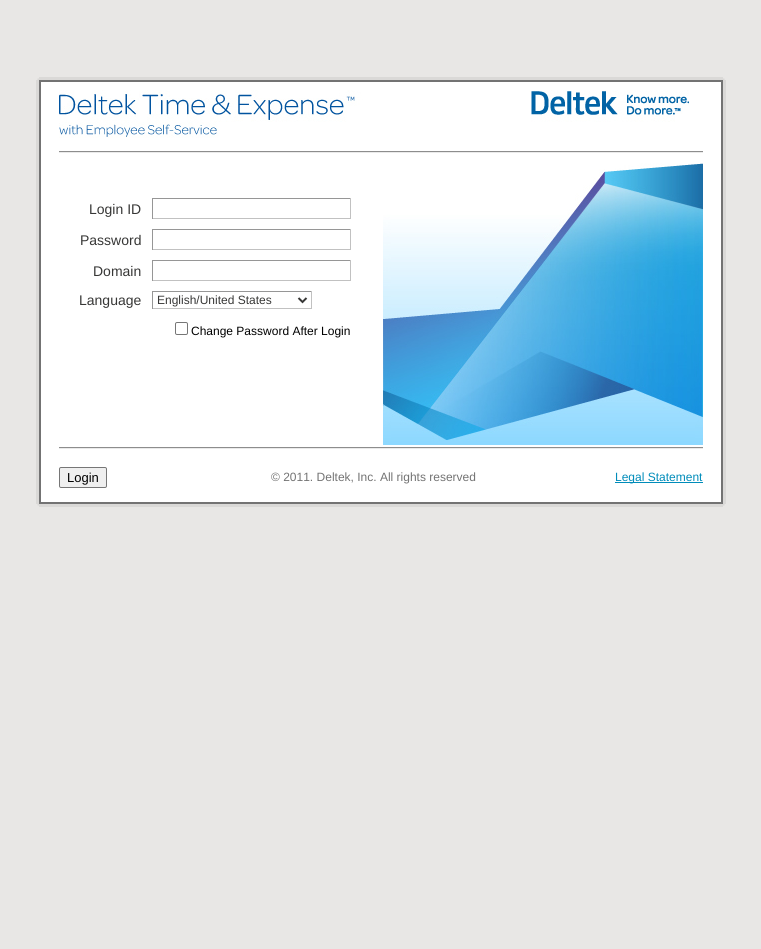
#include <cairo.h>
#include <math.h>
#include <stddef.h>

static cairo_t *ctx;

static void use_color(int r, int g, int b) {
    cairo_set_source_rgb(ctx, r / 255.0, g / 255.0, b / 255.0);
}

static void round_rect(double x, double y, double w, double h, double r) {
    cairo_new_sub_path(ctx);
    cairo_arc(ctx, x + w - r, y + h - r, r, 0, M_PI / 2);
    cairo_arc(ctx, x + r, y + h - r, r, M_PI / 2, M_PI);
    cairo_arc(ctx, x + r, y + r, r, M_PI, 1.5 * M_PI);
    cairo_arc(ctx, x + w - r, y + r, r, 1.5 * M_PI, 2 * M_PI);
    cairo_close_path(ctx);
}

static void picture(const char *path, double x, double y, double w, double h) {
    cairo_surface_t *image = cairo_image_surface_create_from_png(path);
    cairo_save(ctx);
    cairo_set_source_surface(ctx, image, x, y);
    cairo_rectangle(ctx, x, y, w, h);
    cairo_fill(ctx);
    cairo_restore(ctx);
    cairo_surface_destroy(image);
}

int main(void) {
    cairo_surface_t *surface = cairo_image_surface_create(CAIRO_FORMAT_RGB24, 761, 949);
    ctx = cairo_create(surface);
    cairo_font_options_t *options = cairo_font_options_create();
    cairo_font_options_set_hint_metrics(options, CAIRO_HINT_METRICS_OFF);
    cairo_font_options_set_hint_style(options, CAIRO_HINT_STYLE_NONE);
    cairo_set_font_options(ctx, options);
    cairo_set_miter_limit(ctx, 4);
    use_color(232, 231, 229);
    cairo_paint(ctx);
    picture("img1.png", 37, 78, 2, 2);
    use_color(218, 217, 215);
    cairo_rectangle(ctx, 39, 77, 684, 3);
    cairo_fill(ctx);
    picture("img2.png", 723, 78, 2, 2);
    cairo_rectangle(ctx, 36, 80, 3, 424);
    cairo_fill(ctx);
    use_color(255, 255, 255);
    cairo_rectangle(ctx, 40, 81, 682, 422);
    cairo_fill_preserve(ctx);
    use_color(115, 115, 115);
    cairo_stroke(ctx);
    picture("img3.png", 59, 90, 630, 48);
    picture("img4.png", 59, 151, 644, 2);
    cairo_select_font_face(ctx, "Liberation Sans", CAIRO_FONT_SLANT_NORMAL, CAIRO_FONT_WEIGHT_NORMAL);
    cairo_set_font_size(ctx, 14);
    use_color(55, 55, 54);
    cairo_move_to(ctx, 89, 214);
    cairo_show_text(ctx, "Login ID");
    use_color(150, 150, 150);
    cairo_rectangle(ctx, 152, 198, 199, 1);
    cairo_fill(ctx);
    use_color(193, 193, 193);
    cairo_rectangle(ctx, 350, 198, 1, 21);
    cairo_fill(ctx);
    cairo_rectangle(ctx, 152, 218, 199, 1);
    cairo_fill(ctx);
    use_color(150, 150, 150);
    cairo_rectangle(ctx, 152, 198, 1, 21);
    cairo_fill(ctx);
    use_color(55, 55, 54);
    cairo_move_to(ctx, 80, 245);
    cairo_show_text(ctx, "Password");
    use_color(150, 150, 150);
    cairo_rectangle(ctx, 152, 229, 199, 1);
    cairo_fill(ctx);
    use_color(193, 193, 193);
    cairo_rectangle(ctx, 350, 229, 1, 21);
    cairo_fill(ctx);
    cairo_rectangle(ctx, 152, 249, 199, 1);
    cairo_fill(ctx);
    use_color(150, 150, 150);
    cairo_rectangle(ctx, 152, 229, 1, 21);
    cairo_fill(ctx);
    use_color(55, 55, 54);
    cairo_move_to(ctx, 93, 276);
    cairo_show_text(ctx, "Domain");
    use_color(150, 150, 150);
    cairo_rectangle(ctx, 152, 260, 199, 1);
    cairo_fill(ctx);
    use_color(193, 193, 193);
    cairo_rectangle(ctx, 350, 260, 1, 21);
    cairo_fill(ctx);
    cairo_rectangle(ctx, 152, 280, 199, 1);
    cairo_fill(ctx);
    use_color(150, 150, 150);
    cairo_rectangle(ctx, 152, 260, 1, 21);
    cairo_fill(ctx);
    use_color(55, 55, 54);
    cairo_move_to(ctx, 79, 305);
    cairo_show_text(ctx, "Language");
    use_color(150, 150, 150);
    cairo_rectangle(ctx, 152, 291, 160, 1);
    cairo_fill(ctx);
    use_color(193, 193, 193);
    cairo_rectangle(ctx, 311, 291, 1, 18);
    cairo_fill(ctx);
    cairo_rectangle(ctx, 152, 308, 160, 1);
    cairo_fill(ctx);
    use_color(150, 150, 150);
    cairo_rectangle(ctx, 152, 291, 1, 18);
    cairo_fill(ctx);
    cairo_new_path(ctx);
    cairo_move_to(ctx, 298.5, 298);
    cairo_line_to(ctx, 302.5, 302);
    cairo_line_to(ctx, 306.5, 298);
    use_color(55, 55, 54);
    cairo_stroke(ctx);
    cairo_set_font_size(ctx, 12);
    cairo_move_to(ctx, 157, 304);
    cairo_show_text(ctx, "English/United States");
    round_rect(175.5, 322.5, 12, 12, 1.5);
    use_color(118, 118, 118);
    cairo_set_line_width(ctx, 1);
    cairo_stroke(ctx);
    use_color(0, 0, 0);
    cairo_move_to(ctx, 191, 335);
    cairo_show_text(ctx, "Change Password After Login");
    picture("img5.png", 383, 163, 320, 282);
    use_color(218, 217, 215);
    cairo_rectangle(ctx, 723, 80, 3, 424);
    cairo_fill(ctx);
    picture("img4.png", 59, 447, 644, 2);
    use_color(239, 239, 239);
    round_rect(59.5, 467.5, 47, 20, 1.5);
    cairo_fill_preserve(ctx);
    use_color(118, 118, 118);
    cairo_stroke(ctx);
    cairo_set_font_size(ctx, 13);
    use_color(0, 0, 0);
    cairo_move_to(ctx, 67, 482);
    cairo_show_text(ctx, "Login");
    cairo_set_font_size(ctx, 12);
    use_color(115, 115, 115);
    cairo_move_to(ctx, 271, 481);
    cairo_show_text(ctx, "© 2011. Deltek, Inc. All rights reserved");
    use_color(0, 140, 186);
    cairo_rectangle(ctx, 615, 482, 88, 1);
    cairo_fill(ctx);
    cairo_move_to(ctx, 615, 481);
    cairo_show_text(ctx, "Legal Statement");
    picture("img6.png", 37, 504, 2, 2);
    use_color(218, 217, 215);
    cairo_rectangle(ctx, 39, 504, 684, 3);
    cairo_fill(ctx);
    picture("img7.png", 723, 504, 2, 2);
    cairo_surface_write_to_png(surface, "result.png");
    cairo_font_options_destroy(options);
    cairo_destroy(ctx);
    cairo_surface_destroy(surface);
    return 0;
}
